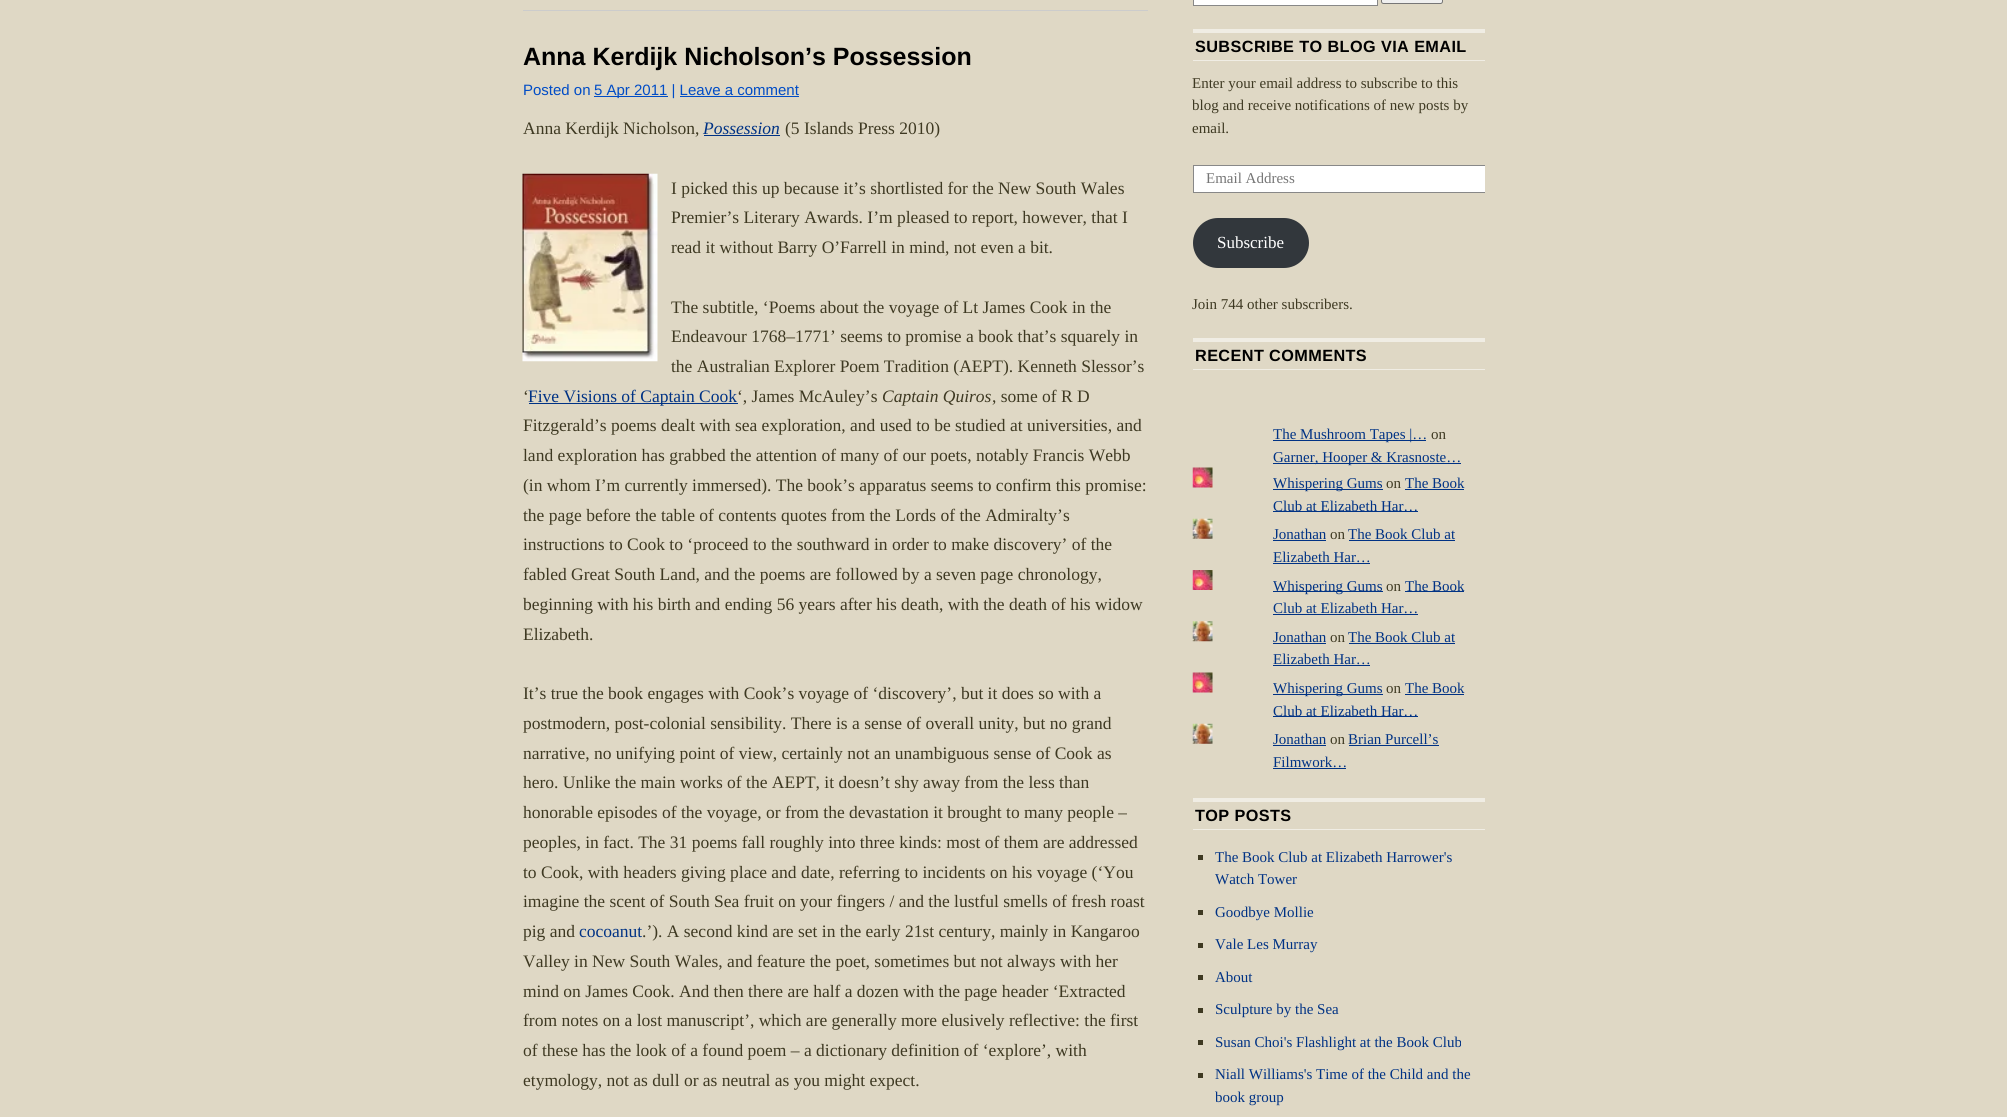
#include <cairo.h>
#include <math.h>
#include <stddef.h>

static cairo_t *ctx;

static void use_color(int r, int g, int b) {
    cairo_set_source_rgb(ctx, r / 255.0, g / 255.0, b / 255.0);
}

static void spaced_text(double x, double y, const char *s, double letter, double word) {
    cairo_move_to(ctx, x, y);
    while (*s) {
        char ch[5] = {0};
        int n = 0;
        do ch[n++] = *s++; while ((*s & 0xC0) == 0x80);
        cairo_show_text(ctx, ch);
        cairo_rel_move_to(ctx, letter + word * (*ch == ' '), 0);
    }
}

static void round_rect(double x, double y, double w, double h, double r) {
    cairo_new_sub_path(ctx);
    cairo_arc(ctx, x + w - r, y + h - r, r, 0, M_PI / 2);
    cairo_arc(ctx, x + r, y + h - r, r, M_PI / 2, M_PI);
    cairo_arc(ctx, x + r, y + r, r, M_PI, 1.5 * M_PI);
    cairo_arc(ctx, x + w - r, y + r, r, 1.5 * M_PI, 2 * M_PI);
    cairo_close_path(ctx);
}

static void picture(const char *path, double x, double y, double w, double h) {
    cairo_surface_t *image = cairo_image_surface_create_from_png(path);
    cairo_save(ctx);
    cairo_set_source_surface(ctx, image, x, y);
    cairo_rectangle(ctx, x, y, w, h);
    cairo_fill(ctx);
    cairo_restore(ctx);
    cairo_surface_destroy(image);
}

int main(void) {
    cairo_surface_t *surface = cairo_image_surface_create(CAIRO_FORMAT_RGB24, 2007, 1117);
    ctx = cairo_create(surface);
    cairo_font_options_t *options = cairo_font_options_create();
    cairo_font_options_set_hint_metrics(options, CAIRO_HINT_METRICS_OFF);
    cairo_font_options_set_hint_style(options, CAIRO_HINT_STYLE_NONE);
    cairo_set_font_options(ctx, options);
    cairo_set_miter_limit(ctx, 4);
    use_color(223, 216, 197);
    cairo_paint(ctx);
    use_color(204, 204, 204);
    cairo_rectangle(ctx, 523, 10, 625, 1);
    cairo_fill(ctx);
    cairo_select_font_face(ctx, "Liberation Sans", CAIRO_FONT_SLANT_NORMAL, CAIRO_FONT_WEIGHT_BOLD);
    cairo_set_font_size(ctx, 25);
    use_color(0, 0, 0);
    cairo_move_to(ctx, 523, 65);
    cairo_show_text(ctx, "Anna Kerdijk Nicholson’s Possession");
    cairo_select_font_face(ctx, "Liberation Sans", CAIRO_FONT_SLANT_NORMAL, CAIRO_FONT_WEIGHT_NORMAL);
    cairo_set_font_size(ctx, 15);
    use_color(0, 76, 198);
    cairo_move_to(ctx, 523, 95);
    cairo_show_text(ctx, "Posted on");
    cairo_rectangle(ctx, 594, 96, 74, 1);
    cairo_fill(ctx);
    cairo_move_to(ctx, 594, 95);
    cairo_show_text(ctx, "5 Apr 2011 | Leave a comment");
    cairo_rectangle(ctx, 680, 96, 119, 1);
    cairo_fill(ctx);
    cairo_select_font_face(ctx, "Liberation Serif", CAIRO_FONT_SLANT_NORMAL, CAIRO_FONT_WEIGHT_NORMAL);
    cairo_set_font_size(ctx, 17.5);
    use_color(62, 57, 34);
    cairo_move_to(ctx, 523, 134);
    cairo_show_text(ctx, "Anna Kerdijk Nicholson,");
    cairo_select_font_face(ctx, "Liberation Serif", CAIRO_FONT_SLANT_ITALIC, CAIRO_FONT_WEIGHT_NORMAL);
    use_color(0, 50, 132);
    cairo_move_to(ctx, 703, 134);
    cairo_show_text(ctx, "Possession");
    cairo_rectangle(ctx, 704, 135, 76, 1);
    cairo_fill(ctx);
    cairo_select_font_face(ctx, "Liberation Serif", CAIRO_FONT_SLANT_NORMAL, CAIRO_FONT_WEIGHT_NORMAL);
    use_color(62, 57, 34);
    cairo_move_to(ctx, 785, 134);
    cairo_show_text(ctx, "(5 Islands Press 2010)");
    picture("img1.png", 522, 173, 136, 189);
    cairo_move_to(ctx, 671, 194);
    cairo_show_text(ctx, "I picked this up because it’s shortlisted for the New South Wales");
    cairo_move_to(ctx, 671, 223);
    cairo_show_text(ctx, "Premier’s Literary Awards. I’m pleased to report, however, that I");
    cairo_move_to(ctx, 671, 253);
    cairo_show_text(ctx, "read it without Barry O’Farrell in mind, not even a bit.");
    cairo_move_to(ctx, 671, 313);
    cairo_show_text(ctx, "The subtitle, ‘Poems about the voyage of Lt James Cook in the");
    cairo_move_to(ctx, 671, 342);
    cairo_show_text(ctx, "Endeavour 1768–1771’ seems to promise a book that’s squarely in");
    cairo_move_to(ctx, 671, 372);
    cairo_show_text(ctx, "the Australian Explorer Poem Tradition (AEPT). Kenneth Slessor’s");
    cairo_move_to(ctx, 523, 402);
    cairo_show_text(ctx, "‘");
    use_color(0, 50, 132);
    cairo_rectangle(ctx, 529, 403, 209, 1);
    cairo_fill(ctx);
    cairo_move_to(ctx, 528, 402);
    cairo_show_text(ctx, "Five Visions of Captain Cook");
    use_color(62, 57, 34);
    cairo_move_to(ctx, 737, 402);
    cairo_show_text(ctx, "‘, James McAuley’s");
    cairo_select_font_face(ctx, "Liberation Serif", CAIRO_FONT_SLANT_ITALIC, CAIRO_FONT_WEIGHT_NORMAL);
    cairo_move_to(ctx, 882, 402);
    cairo_show_text(ctx, "Captain Quiros");
    cairo_select_font_face(ctx, "Liberation Serif", CAIRO_FONT_SLANT_NORMAL, CAIRO_FONT_WEIGHT_NORMAL);
    cairo_move_to(ctx, 992, 402);
    cairo_show_text(ctx, ", some of R D");
    cairo_move_to(ctx, 523, 431);
    cairo_show_text(ctx, "Fitzgerald’s poems dealt with sea exploration, and used to be studied at universities, and");
    cairo_move_to(ctx, 523, 461);
    cairo_show_text(ctx, "land exploration has grabbed the attention of many of our poets, notably Francis Webb");
    cairo_move_to(ctx, 523, 491);
    cairo_show_text(ctx, "(in whom I’m currently immersed). The book’s apparatus seems to confirm this promise:");
    cairo_move_to(ctx, 523, 521);
    cairo_show_text(ctx, "the page before the table of contents quotes from the Lords of the Admiralty’s");
    cairo_move_to(ctx, 523, 550);
    cairo_show_text(ctx, "instructions to Cook to ‘proceed to the southward in order to make discovery’ of the");
    cairo_move_to(ctx, 523, 580);
    cairo_show_text(ctx, "fabled Great South Land, and the poems are followed by a seven page chronology,");
    cairo_move_to(ctx, 523, 610);
    cairo_show_text(ctx, "beginning with his birth and ending 56 years after his death, with the death of his widow");
    cairo_move_to(ctx, 523, 640);
    cairo_show_text(ctx, "Elizabeth.");
    cairo_move_to(ctx, 523, 699);
    cairo_show_text(ctx, "It’s true the book engages with Cook’s voyage of ‘discovery’, but it does so with a");
    cairo_move_to(ctx, 523, 729);
    cairo_show_text(ctx, "postmodern, post-colonial sensibility. There is a sense of overall unity, but no grand");
    cairo_move_to(ctx, 523, 759);
    cairo_show_text(ctx, "narrative, no unifying point of view, certainly not an unambiguous sense of Cook as");
    cairo_move_to(ctx, 523, 788);
    cairo_show_text(ctx, "hero. Unlike the main works of the AEPT, it doesn’t shy away from the less than");
    cairo_move_to(ctx, 523, 818);
    cairo_show_text(ctx, "honorable episodes of the voyage, or from the devastation it brought to many people –");
    cairo_move_to(ctx, 523, 848);
    cairo_show_text(ctx, "peoples, in fact. The 31 poems fall roughly into three kinds: most of them are addressed");
    cairo_move_to(ctx, 523, 878);
    cairo_show_text(ctx, "to Cook, with headers giving place and date, referring to incidents on his voyage (‘You");
    cairo_move_to(ctx, 523, 907);
    cairo_show_text(ctx, "imagine the scent of South Sea fruit on your fingers / and the lustful smells of fresh roast");
    cairo_move_to(ctx, 523, 937);
    cairo_show_text(ctx, "pig and");
    use_color(0, 50, 132);
    cairo_move_to(ctx, 579, 937);
    cairo_show_text(ctx, "cocoanut");
    use_color(62, 57, 34);
    cairo_move_to(ctx, 642, 937);
    cairo_show_text(ctx, ".’). A second kind are set in the early 21st century, mainly in Kangaroo");
    cairo_move_to(ctx, 523, 967);
    cairo_show_text(ctx, "Valley in New South Wales, and feature the poet, sometimes but not always with her");
    cairo_move_to(ctx, 523, 997);
    cairo_show_text(ctx, "mind on James Cook. And then there are half a dozen with the page header ‘Extracted");
    cairo_move_to(ctx, 523, 1026);
    cairo_show_text(ctx, "from notes on a lost manuscript’, which are generally more elusively reflective: the first");
    cairo_move_to(ctx, 523, 1056);
    cairo_show_text(ctx, "of these has the look of a found poem – a dictionary definition of ‘explore’, with");
    cairo_move_to(ctx, 523, 1086);
    cairo_show_text(ctx, "etymology, not as dull or as neutral as you might expect.");
    use_color(255, 255, 255);
    cairo_rectangle(ctx, 1193.5, -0.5, 184, 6);
    cairo_fill_preserve(ctx);
    use_color(136, 136, 136);
    cairo_set_line_width(ctx, 1);
    cairo_stroke(ctx);
    use_color(239, 239, 239);
    round_rect(1381.5, -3.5, 61, 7, 2);
    cairo_fill_preserve(ctx);
    use_color(118, 118, 118);
    cairo_stroke(ctx);
    use_color(240, 237, 228);
    cairo_rectangle(ctx, 1193, 29, 292, 4);
    cairo_fill(ctx);
    cairo_rectangle(ctx, 1193, 60, 292, 1);
    cairo_fill(ctx);
    cairo_select_font_face(ctx, "Liberation Sans", CAIRO_FONT_SLANT_NORMAL, CAIRO_FONT_WEIGHT_BOLD);
    cairo_set_font_size(ctx, 16.25);
    use_color(0, 0, 0);
    spaced_text(1195, 52, "SUBSCRIBE TO BLOG VIA EMAIL", 0.4, 0);
    cairo_select_font_face(ctx, "Liberation Serif", CAIRO_FONT_SLANT_NORMAL, CAIRO_FONT_WEIGHT_NORMAL);
    cairo_set_font_size(ctx, 15);
    use_color(62, 57, 34);
    cairo_move_to(ctx, 1192, 88);
    cairo_show_text(ctx, "Enter your email address to subscribe to this");
    cairo_move_to(ctx, 1192, 110);
    cairo_show_text(ctx, "blog and receive notifications of new posts by");
    cairo_move_to(ctx, 1192, 133);
    cairo_show_text(ctx, "email.");
    use_color(255, 255, 255);
    cairo_rectangle(ctx, 1194, 166, 291, 26);
    cairo_fill(ctx);
    cairo_save(ctx);
    cairo_rectangle(ctx, 1193, 0, 292, 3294);
    cairo_clip(ctx);
    cairo_rectangle(ctx, 1193.5, 165.5, 304, 27);
    use_color(136, 136, 136);
    cairo_stroke(ctx);
    cairo_restore(ctx);
    use_color(117, 117, 117);
    cairo_move_to(ctx, 1206, 183);
    cairo_show_text(ctx, "Email Address");
    use_color(50, 55, 60);
    round_rect(1193, 218, 116, 50, 25);
    cairo_fill(ctx);
    cairo_set_font_size(ctx, 17);
    use_color(255, 255, 255);
    cairo_move_to(ctx, 1217, 248);
    cairo_show_text(ctx, "Subscribe");
    cairo_set_font_size(ctx, 15);
    use_color(62, 57, 34);
    cairo_move_to(ctx, 1192, 309);
    cairo_show_text(ctx, "Join 744 other subscribers.");
    use_color(240, 237, 228);
    cairo_rectangle(ctx, 1193, 338, 292, 4);
    cairo_fill(ctx);
    cairo_rectangle(ctx, 1193, 369, 292, 1);
    cairo_fill(ctx);
    cairo_select_font_face(ctx, "Liberation Sans", CAIRO_FONT_SLANT_NORMAL, CAIRO_FONT_WEIGHT_BOLD);
    cairo_set_font_size(ctx, 16.25);
    use_color(0, 0, 0);
    spaced_text(1195, 361, "RECENT COMMENTS", 0.4, 0);
    use_color(0, 50, 132);
    cairo_rectangle(ctx, 1273, 440, 153, 1);
    cairo_fill(ctx);
    cairo_select_font_face(ctx, "Liberation Serif", CAIRO_FONT_SLANT_NORMAL, CAIRO_FONT_WEIGHT_NORMAL);
    cairo_set_font_size(ctx, 15);
    cairo_move_to(ctx, 1273, 439);
    cairo_show_text(ctx, "The Mushroom Tapes |…");
    use_color(62, 57, 34);
    cairo_move_to(ctx, 1431, 439);
    cairo_show_text(ctx, "on");
    use_color(0, 50, 132);
    cairo_rectangle(ctx, 1273, 463, 188, 1);
    cairo_fill(ctx);
    cairo_move_to(ctx, 1273, 462);
    cairo_show_text(ctx, "Garner, Hooper & Krasnoste…");
    picture("img2.png", 1192, 467, 21, 21);
    cairo_rectangle(ctx, 1273, 489, 110, 1);
    cairo_fill(ctx);
    cairo_move_to(ctx, 1273, 488);
    cairo_show_text(ctx, "Whispering Gums");
    use_color(62, 57, 34);
    cairo_move_to(ctx, 1386, 488);
    cairo_show_text(ctx, "on");
    use_color(0, 50, 132);
    cairo_move_to(ctx, 1405, 488);
    cairo_show_text(ctx, "The Book");
    cairo_rectangle(ctx, 1405, 489, 59, 1);
    cairo_fill(ctx);
    cairo_rectangle(ctx, 1273, 511, 145, 1);
    cairo_fill(ctx);
    cairo_move_to(ctx, 1273, 511);
    cairo_show_text(ctx, "Club at Elizabeth Har…");
    picture("img3.png", 1192, 518, 21, 21);
    cairo_move_to(ctx, 1273, 539);
    cairo_show_text(ctx, "Jonathan");
    cairo_rectangle(ctx, 1273, 540, 53, 1);
    cairo_fill(ctx);
    use_color(62, 57, 34);
    cairo_move_to(ctx, 1330, 539);
    cairo_show_text(ctx, "on");
    use_color(0, 50, 132);
    cairo_move_to(ctx, 1348, 539);
    cairo_show_text(ctx, "The Book Club at");
    cairo_rectangle(ctx, 1349, 540, 106, 1);
    cairo_fill(ctx);
    cairo_move_to(ctx, 1273, 562);
    cairo_show_text(ctx, "Elizabeth Har…");
    cairo_rectangle(ctx, 1273, 563, 97, 1);
    cairo_fill(ctx);
    picture("img4.png", 1192, 570, 21, 20);
    cairo_rectangle(ctx, 1273, 591, 110, 1);
    cairo_fill(ctx);
    cairo_move_to(ctx, 1273, 591);
    cairo_show_text(ctx, "Whispering Gums");
    use_color(62, 57, 34);
    cairo_move_to(ctx, 1386, 591);
    cairo_show_text(ctx, "on");
    use_color(0, 50, 132);
    cairo_rectangle(ctx, 1405, 591, 59, 1);
    cairo_fill(ctx);
    cairo_move_to(ctx, 1405, 591);
    cairo_show_text(ctx, "The Book");
    cairo_move_to(ctx, 1273, 613);
    cairo_show_text(ctx, "Club at Elizabeth Har…");
    cairo_rectangle(ctx, 1273, 614, 145, 1);
    cairo_fill(ctx);
    picture("img5.png", 1192, 621, 21, 21);
    cairo_move_to(ctx, 1273, 642);
    cairo_show_text(ctx, "Jonathan");
    cairo_rectangle(ctx, 1273, 643, 53, 1);
    cairo_fill(ctx);
    use_color(62, 57, 34);
    cairo_move_to(ctx, 1330, 642);
    cairo_show_text(ctx, "on");
    use_color(0, 50, 132);
    cairo_move_to(ctx, 1348, 642);
    cairo_show_text(ctx, "The Book Club at");
    cairo_rectangle(ctx, 1349, 643, 106, 1);
    cairo_fill(ctx);
    cairo_move_to(ctx, 1273, 664);
    cairo_show_text(ctx, "Elizabeth Har…");
    cairo_rectangle(ctx, 1273, 665, 97, 1);
    cairo_fill(ctx);
    picture("img2.png", 1192, 672, 21, 21);
    cairo_rectangle(ctx, 1273, 694, 110, 1);
    cairo_fill(ctx);
    cairo_move_to(ctx, 1273, 693);
    cairo_show_text(ctx, "Whispering Gums");
    use_color(62, 57, 34);
    cairo_move_to(ctx, 1386, 693);
    cairo_show_text(ctx, "on");
    use_color(0, 50, 132);
    cairo_move_to(ctx, 1405, 693);
    cairo_show_text(ctx, "The Book");
    cairo_rectangle(ctx, 1405, 694, 59, 1);
    cairo_fill(ctx);
    cairo_rectangle(ctx, 1273, 716, 145, 1);
    cairo_fill(ctx);
    cairo_move_to(ctx, 1273, 716);
    cairo_show_text(ctx, "Club at Elizabeth Har…");
    picture("img3.png", 1192, 723, 21, 21);
    cairo_move_to(ctx, 1273, 744);
    cairo_show_text(ctx, "Jonathan");
    cairo_rectangle(ctx, 1273, 745, 53, 1);
    cairo_fill(ctx);
    use_color(62, 57, 34);
    cairo_move_to(ctx, 1330, 744);
    cairo_show_text(ctx, "on");
    use_color(0, 50, 132);
    cairo_move_to(ctx, 1348, 744);
    cairo_show_text(ctx, "Brian Purcell’s");
    cairo_rectangle(ctx, 1349, 745, 90, 1);
    cairo_fill(ctx);
    cairo_move_to(ctx, 1273, 767);
    cairo_show_text(ctx, "Filmwork…");
    cairo_rectangle(ctx, 1273, 768, 73, 1);
    cairo_fill(ctx);
    use_color(240, 237, 228);
    cairo_rectangle(ctx, 1193, 798, 292, 4);
    cairo_fill(ctx);
    cairo_rectangle(ctx, 1193, 829, 292, 1);
    cairo_fill(ctx);
    cairo_select_font_face(ctx, "Liberation Sans", CAIRO_FONT_SLANT_NORMAL, CAIRO_FONT_WEIGHT_BOLD);
    cairo_set_font_size(ctx, 16.25);
    use_color(0, 0, 0);
    spaced_text(1195, 821, "TOP POSTS", 0.4, 0);
    use_color(62, 57, 34);
    cairo_rectangle(ctx, 1198, 855, 5, 5);
    cairo_fill(ctx);
    cairo_select_font_face(ctx, "Liberation Serif", CAIRO_FONT_SLANT_NORMAL, CAIRO_FONT_WEIGHT_NORMAL);
    cairo_set_font_size(ctx, 15);
    use_color(0, 50, 132);
    cairo_move_to(ctx, 1215, 862);
    cairo_show_text(ctx, "The Book Club at Elizabeth Harrower's");
    cairo_move_to(ctx, 1215, 884);
    cairo_show_text(ctx, "Watch Tower");
    use_color(62, 57, 34);
    cairo_rectangle(ctx, 1198, 910, 5, 5);
    cairo_fill(ctx);
    use_color(0, 50, 132);
    cairo_move_to(ctx, 1215, 917);
    cairo_show_text(ctx, "Goodbye Mollie");
    use_color(62, 57, 34);
    cairo_rectangle(ctx, 1198, 943, 5, 5);
    cairo_fill(ctx);
    use_color(0, 50, 132);
    cairo_move_to(ctx, 1215, 949);
    cairo_show_text(ctx, "Vale Les Murray");
    use_color(62, 57, 34);
    cairo_rectangle(ctx, 1198, 975, 5, 5);
    cairo_fill(ctx);
    use_color(0, 50, 132);
    cairo_move_to(ctx, 1215, 982);
    cairo_show_text(ctx, "About");
    use_color(62, 57, 34);
    cairo_rectangle(ctx, 1198, 1008, 5, 5);
    cairo_fill(ctx);
    use_color(0, 50, 132);
    cairo_move_to(ctx, 1215, 1014);
    cairo_show_text(ctx, "Sculpture by the Sea");
    use_color(62, 57, 34);
    cairo_rectangle(ctx, 1198, 1040, 5, 5);
    cairo_fill(ctx);
    use_color(0, 50, 132);
    cairo_move_to(ctx, 1215, 1047);
    cairo_show_text(ctx, "Susan Choi's Flashlight at the Book Club");
    use_color(62, 57, 34);
    cairo_rectangle(ctx, 1198, 1073, 5, 5);
    cairo_fill(ctx);
    use_color(0, 50, 132);
    cairo_move_to(ctx, 1215, 1079);
    cairo_show_text(ctx, "Niall Williams's Time of the Child and the");
    cairo_move_to(ctx, 1215, 1102);
    cairo_show_text(ctx, "book group");
    cairo_surface_write_to_png(surface, "result.png");
    cairo_font_options_destroy(options);
    cairo_destroy(ctx);
    cairo_surface_destroy(surface);
    return 0;
}
